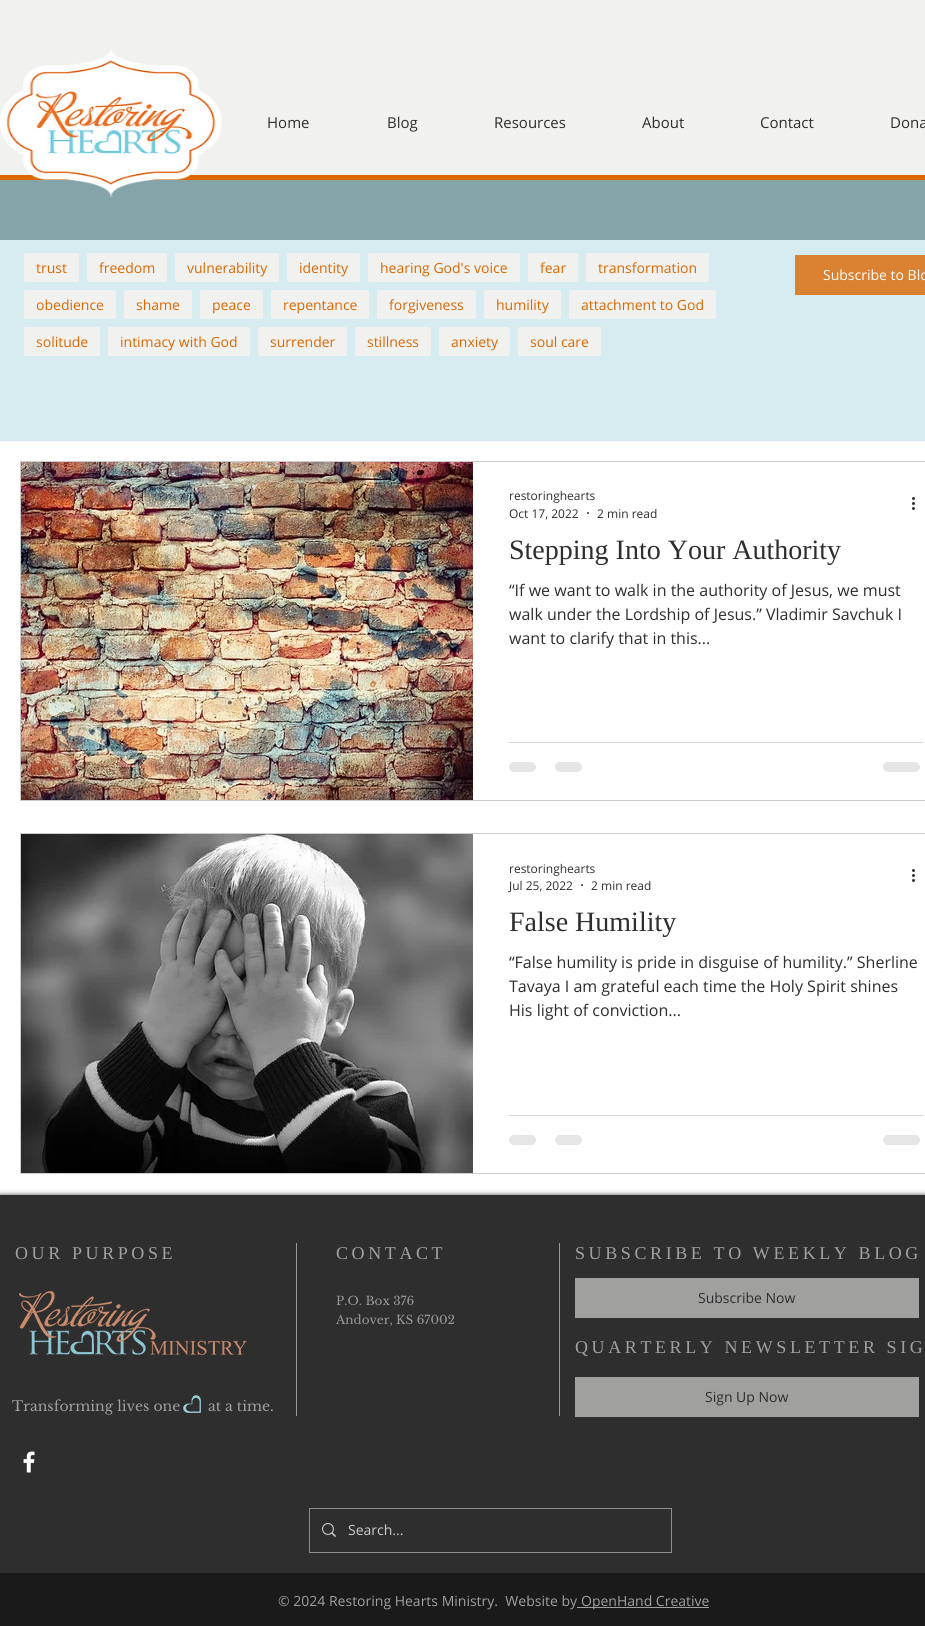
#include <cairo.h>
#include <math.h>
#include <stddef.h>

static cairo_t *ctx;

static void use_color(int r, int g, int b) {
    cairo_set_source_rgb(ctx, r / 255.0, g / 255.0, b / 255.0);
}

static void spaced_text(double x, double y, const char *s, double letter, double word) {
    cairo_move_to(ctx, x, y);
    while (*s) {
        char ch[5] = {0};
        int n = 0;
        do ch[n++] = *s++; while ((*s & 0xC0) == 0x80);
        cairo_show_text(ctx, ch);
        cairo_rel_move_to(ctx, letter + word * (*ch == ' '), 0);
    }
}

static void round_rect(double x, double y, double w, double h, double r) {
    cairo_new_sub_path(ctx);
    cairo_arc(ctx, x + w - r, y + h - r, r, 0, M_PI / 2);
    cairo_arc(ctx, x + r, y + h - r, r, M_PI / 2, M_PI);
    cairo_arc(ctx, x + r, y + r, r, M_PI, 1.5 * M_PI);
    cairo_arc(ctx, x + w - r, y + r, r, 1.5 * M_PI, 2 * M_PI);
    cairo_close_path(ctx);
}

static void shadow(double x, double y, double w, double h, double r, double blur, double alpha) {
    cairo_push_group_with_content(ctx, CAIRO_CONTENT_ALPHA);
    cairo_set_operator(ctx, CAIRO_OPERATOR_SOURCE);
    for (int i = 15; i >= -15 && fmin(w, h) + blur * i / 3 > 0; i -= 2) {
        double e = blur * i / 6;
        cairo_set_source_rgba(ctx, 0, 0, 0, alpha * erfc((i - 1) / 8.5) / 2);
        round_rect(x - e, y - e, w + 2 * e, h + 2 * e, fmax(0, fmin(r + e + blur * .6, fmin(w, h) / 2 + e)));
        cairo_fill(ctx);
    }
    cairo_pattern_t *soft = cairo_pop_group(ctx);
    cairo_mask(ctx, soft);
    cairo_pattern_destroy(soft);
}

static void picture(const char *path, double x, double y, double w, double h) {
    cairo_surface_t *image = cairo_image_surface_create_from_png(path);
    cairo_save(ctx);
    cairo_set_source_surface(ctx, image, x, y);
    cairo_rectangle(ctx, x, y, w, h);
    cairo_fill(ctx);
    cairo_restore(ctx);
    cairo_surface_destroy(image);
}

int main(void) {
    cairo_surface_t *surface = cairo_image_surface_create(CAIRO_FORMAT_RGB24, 925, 1626);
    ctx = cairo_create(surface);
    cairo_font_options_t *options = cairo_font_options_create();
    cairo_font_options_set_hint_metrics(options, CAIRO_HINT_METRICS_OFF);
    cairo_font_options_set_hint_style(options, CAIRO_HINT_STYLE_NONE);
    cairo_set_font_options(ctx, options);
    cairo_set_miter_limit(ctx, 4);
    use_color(132, 164, 169);
    cairo_paint(ctx);
    use_color(241, 241, 239);
    cairo_rectangle(ctx, 0, 0, 925, 175);
    cairo_fill(ctx);
    use_color(219, 104, 2);
    cairo_rectangle(ctx, 0, 175, 925, 5);
    cairo_fill(ctx);
    picture("img1.png", 0, 48, 222, 149);
    cairo_select_font_face(ctx, "Open Sans", CAIRO_FONT_SLANT_NORMAL, CAIRO_FONT_WEIGHT_NORMAL);
    cairo_set_font_size(ctx, 15);
    use_color(47, 46, 46);
    cairo_move_to(ctx, 267, 128);
    cairo_show_text(ctx, "Home");
    cairo_move_to(ctx, 387, 128);
    cairo_show_text(ctx, "Blog");
    cairo_move_to(ctx, 494, 128);
    cairo_show_text(ctx, "Resources");
    cairo_move_to(ctx, 642, 128);
    cairo_show_text(ctx, "About");
    cairo_move_to(ctx, 760, 128);
    cairo_show_text(ctx, "Contact");
    cairo_move_to(ctx, 890, 128);
    cairo_show_text(ctx, "Dona");
    use_color(214, 236, 240);
    cairo_rectangle(ctx, 0, 240, 925, 201);
    cairo_fill(ctx);
    use_color(241, 241, 239);
    round_rect(24, 253, 55, 29, 2);
    cairo_fill(ctx);
    cairo_set_font_size(ctx, 14);
    use_color(219, 104, 2);
    cairo_move_to(ctx, 36, 273);
    cairo_show_text(ctx, "trust");
    use_color(241, 241, 239);
    round_rect(87, 253, 80, 29, 2);
    cairo_fill(ctx);
    use_color(219, 104, 2);
    cairo_move_to(ctx, 99, 273);
    cairo_show_text(ctx, "freedom");
    use_color(241, 241, 239);
    round_rect(175, 253, 104, 29, 2);
    cairo_fill(ctx);
    use_color(219, 104, 2);
    cairo_move_to(ctx, 187, 273);
    cairo_show_text(ctx, "vulnerability");
    use_color(241, 241, 239);
    round_rect(287, 253, 73, 29, 2);
    cairo_fill(ctx);
    use_color(219, 104, 2);
    cairo_move_to(ctx, 299, 273);
    cairo_show_text(ctx, "identity");
    use_color(241, 241, 239);
    round_rect(368, 253, 152, 29, 2);
    cairo_fill(ctx);
    use_color(219, 104, 2);
    cairo_move_to(ctx, 380, 273);
    cairo_show_text(ctx, "hearing God's voice");
    use_color(241, 241, 239);
    round_rect(528, 253, 50, 29, 2);
    cairo_fill(ctx);
    use_color(219, 104, 2);
    cairo_move_to(ctx, 540, 273);
    cairo_show_text(ctx, "fear");
    use_color(241, 241, 239);
    round_rect(586, 253, 123, 29, 2);
    cairo_fill(ctx);
    use_color(219, 104, 2);
    cairo_move_to(ctx, 598, 273);
    cairo_show_text(ctx, "transformation");
    use_color(241, 241, 239);
    round_rect(24, 290, 92, 29, 2);
    cairo_fill(ctx);
    use_color(219, 104, 2);
    cairo_move_to(ctx, 36, 310);
    cairo_show_text(ctx, "obedience");
    use_color(241, 241, 239);
    round_rect(124, 290, 68, 29, 2);
    cairo_fill(ctx);
    use_color(219, 104, 2);
    cairo_move_to(ctx, 136, 310);
    cairo_show_text(ctx, "shame");
    use_color(241, 241, 239);
    round_rect(200, 290, 63, 29, 2);
    cairo_fill(ctx);
    use_color(219, 104, 2);
    cairo_move_to(ctx, 212, 310);
    cairo_show_text(ctx, "peace");
    use_color(241, 241, 239);
    round_rect(271, 290, 98, 29, 2);
    cairo_fill(ctx);
    use_color(219, 104, 2);
    cairo_move_to(ctx, 283, 310);
    cairo_show_text(ctx, "repentance");
    use_color(241, 241, 239);
    round_rect(377, 290, 99, 29, 2);
    cairo_fill(ctx);
    use_color(219, 104, 2);
    cairo_move_to(ctx, 389, 310);
    cairo_show_text(ctx, "forgiveness");
    use_color(241, 241, 239);
    round_rect(484, 290, 77, 29, 2);
    cairo_fill(ctx);
    use_color(219, 104, 2);
    cairo_move_to(ctx, 496, 310);
    cairo_show_text(ctx, "humility");
    use_color(241, 241, 239);
    round_rect(569, 290, 147, 29, 2);
    cairo_fill(ctx);
    use_color(219, 104, 2);
    cairo_move_to(ctx, 581, 310);
    cairo_show_text(ctx, "attachment to God");
    use_color(241, 241, 239);
    round_rect(24, 327, 76, 29, 2);
    cairo_fill(ctx);
    use_color(219, 104, 2);
    cairo_move_to(ctx, 36, 347);
    cairo_show_text(ctx, "solitude");
    use_color(241, 241, 239);
    round_rect(108, 327, 142, 29, 2);
    cairo_fill(ctx);
    use_color(219, 104, 2);
    cairo_move_to(ctx, 120, 347);
    cairo_show_text(ctx, "intimacy with God");
    use_color(241, 241, 239);
    round_rect(258, 327, 89, 29, 2);
    cairo_fill(ctx);
    use_color(219, 104, 2);
    cairo_move_to(ctx, 270, 347);
    cairo_show_text(ctx, "surrender");
    use_color(241, 241, 239);
    round_rect(355, 327, 76, 29, 2);
    cairo_fill(ctx);
    use_color(219, 104, 2);
    cairo_move_to(ctx, 367, 347);
    cairo_show_text(ctx, "stillness");
    use_color(241, 241, 239);
    round_rect(439, 327, 71, 29, 2);
    cairo_fill(ctx);
    use_color(219, 104, 2);
    cairo_move_to(ctx, 451, 347);
    cairo_show_text(ctx, "anxiety");
    use_color(241, 241, 239);
    round_rect(518, 327, 83, 29, 2);
    cairo_fill(ctx);
    use_color(219, 104, 2);
    cairo_move_to(ctx, 530, 347);
    cairo_show_text(ctx, "soul care");
    use_color(218, 130, 50);
    cairo_rectangle(ctx, 795, 255, 130, 40);
    cairo_fill(ctx);
    use_color(255, 255, 255);
    cairo_move_to(ctx, 823, 280);
    cairo_show_text(ctx, "Subscribe to Blo");
    cairo_rectangle(ctx, 0, 441, 925, 754);
    cairo_fill(ctx);
    cairo_rectangle(ctx, 20.5, 461.5, 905, 339);
    use_color(204, 204, 204);
    cairo_set_line_width(ctx, 1);
    cairo_stroke(ctx);
    picture("img2.png", 21, 462, 452, 338);
    cairo_set_font_size(ctx, 12);
    use_color(47, 46, 46);
    cairo_move_to(ctx, 509, 500);
    cairo_show_text(ctx, "restoringhearts");
    cairo_move_to(ctx, 509, 518);
    cairo_show_text(ctx, "Oct 17, 2022");
    cairo_new_path(ctx);
    cairo_arc(ctx, 588, 513, 1, 0, 2 * M_PI);
    cairo_fill(ctx);
    cairo_move_to(ctx, 597, 518);
    cairo_show_text(ctx, "2 min read");
    picture("img3.png", 912, 497, 3, 13);
    cairo_select_font_face(ctx, "Liberation Serif", CAIRO_FONT_SLANT_NORMAL, CAIRO_FONT_WEIGHT_NORMAL);
    cairo_set_font_size(ctx, 28);
    cairo_move_to(ctx, 509, 559);
    cairo_show_text(ctx, "Stepping Into Your Authority");
    cairo_select_font_face(ctx, "Open Sans", CAIRO_FONT_SLANT_NORMAL, CAIRO_FONT_WEIGHT_NORMAL);
    cairo_set_font_size(ctx, 16);
    cairo_move_to(ctx, 509, 596);
    cairo_show_text(ctx, "“If we want to walk in the authority of Jesus, we must");
    cairo_move_to(ctx, 509, 620);
    cairo_show_text(ctx, "walk under the Lordship of Jesus.” Vladimir Savchuk I");
    cairo_move_to(ctx, 509, 644);
    cairo_show_text(ctx, "want to clarify that in this...");
    use_color(213, 213, 213);
    cairo_rectangle(ctx, 509, 742, 414, 1);
    cairo_fill(ctx);
    use_color(230, 230, 230);
    round_rect(509, 762, 27, 10, 5);
    cairo_fill(ctx);
    round_rect(555, 762, 27, 10, 5);
    cairo_fill(ctx);
    round_rect(883, 762, 37, 10, 5);
    cairo_fill(ctx);
    cairo_rectangle(ctx, 20.5, 833.5, 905, 340);
    use_color(204, 204, 204);
    cairo_stroke(ctx);
    picture("img4.png", 21, 834, 452, 339);
    cairo_set_font_size(ctx, 12);
    use_color(47, 46, 46);
    cairo_move_to(ctx, 509, 873);
    cairo_show_text(ctx, "restoringhearts");
    cairo_move_to(ctx, 509, 890);
    cairo_show_text(ctx, "Jul 25, 2022");
    cairo_new_path(ctx);
    cairo_arc(ctx, 582, 885, 1, 0, 2 * M_PI);
    cairo_fill(ctx);
    cairo_move_to(ctx, 591, 890);
    cairo_show_text(ctx, "2 min read");
    picture("img3.png", 912, 869, 3, 13);
    cairo_select_font_face(ctx, "Liberation Serif", CAIRO_FONT_SLANT_NORMAL, CAIRO_FONT_WEIGHT_NORMAL);
    cairo_set_font_size(ctx, 28);
    cairo_move_to(ctx, 509, 931);
    cairo_show_text(ctx, "False Humility");
    cairo_select_font_face(ctx, "Open Sans", CAIRO_FONT_SLANT_NORMAL, CAIRO_FONT_WEIGHT_NORMAL);
    cairo_set_font_size(ctx, 16);
    cairo_move_to(ctx, 509, 968);
    cairo_show_text(ctx, "“False humility is pride in disguise of humility.” Sherline");
    cairo_move_to(ctx, 509, 992);
    cairo_show_text(ctx, "Tavaya I am grateful each time the Holy Spirit shines");
    cairo_move_to(ctx, 509, 1016);
    cairo_show_text(ctx, "His light of conviction...");
    use_color(213, 213, 213);
    cairo_rectangle(ctx, 509, 1115, 414, 1);
    cairo_fill(ctx);
    use_color(230, 230, 230);
    round_rect(509, 1135, 27, 10, 5);
    cairo_fill(ctx);
    round_rect(555, 1135, 27, 10, 5);
    cairo_fill(ctx);
    round_rect(883, 1135, 37, 10, 5);
    cairo_fill(ctx);
    use_color(0, 0, 0);
    shadow(0, 1195, 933, 431, 0, 2.5, 0.7);
    use_color(47, 46, 46);
    cairo_rectangle(ctx, 0, 1195, 925, 378);
    cairo_fill(ctx);
    cairo_select_font_face(ctx, "Liberation Serif", CAIRO_FONT_SLANT_NORMAL, CAIRO_FONT_WEIGHT_NORMAL);
    cairo_set_font_size(ctx, 18);
    use_color(160, 160, 159);
    spaced_text(15, 1259, "OUR PURPOSE", 3.6, 0);
    use_color(153, 153, 153);
    cairo_rectangle(ctx, 296, 1243, 1, 173);
    cairo_fill(ctx);
    use_color(160, 160, 159);
    spaced_text(336, 1259, "CONTACT", 3.6, 0);
    use_color(153, 153, 153);
    cairo_rectangle(ctx, 559, 1243, 1, 173);
    cairo_fill(ctx);
    use_color(160, 160, 159);
    spaced_text(575, 1259, "SUBSCRIBE TO WEEKLY BLOG", 3.6, 0);
    picture("img5.png", 19, 1290, 228, 66);
    cairo_select_font_face(ctx, "Libre Baskerville", CAIRO_FONT_SLANT_NORMAL, CAIRO_FONT_WEIGHT_NORMAL);
    cairo_set_font_size(ctx, 12);
    use_color(153, 153, 153);
    cairo_move_to(ctx, 336, 1305);
    cairo_show_text(ctx, "P.O. Box 376");
    cairo_move_to(ctx, 336, 1324);
    cairo_show_text(ctx, "Andover, KS 67002");
    use_color(160, 160, 159);
    cairo_rectangle(ctx, 575, 1278, 344, 40);
    cairo_fill(ctx);
    cairo_select_font_face(ctx, "Open Sans", CAIRO_FONT_SLANT_NORMAL, CAIRO_FONT_WEIGHT_NORMAL);
    cairo_set_font_size(ctx, 14);
    use_color(47, 46, 46);
    cairo_move_to(ctx, 698, 1303);
    cairo_show_text(ctx, "Subscribe Now");
    cairo_select_font_face(ctx, "Liberation Serif", CAIRO_FONT_SLANT_NORMAL, CAIRO_FONT_WEIGHT_NORMAL);
    cairo_set_font_size(ctx, 18);
    use_color(160, 160, 159);
    spaced_text(575, 1353, "QUARTERLY NEWSLETTER SIG", 3.6, 0);
    picture("img6.png", 183, 1395, 18, 18);
    cairo_rectangle(ctx, 575, 1377, 344, 40);
    cairo_fill(ctx);
    cairo_select_font_face(ctx, "Open Sans", CAIRO_FONT_SLANT_NORMAL, CAIRO_FONT_WEIGHT_NORMAL);
    cairo_set_font_size(ctx, 14);
    use_color(47, 46, 46);
    cairo_move_to(ctx, 705, 1402);
    cairo_show_text(ctx, "Sign Up Now");
    cairo_select_font_face(ctx, "Libre Baskerville", CAIRO_FONT_SLANT_NORMAL, CAIRO_FONT_WEIGHT_NORMAL);
    use_color(160, 160, 159);
    cairo_move_to(ctx, 12, 1411);
    cairo_show_text(ctx, "Transforming lives one");
    cairo_move_to(ctx, 208, 1411);
    cairo_show_text(ctx, "at a time.");
    picture("img7.png", 23, 1451, 12, 22);
    cairo_rectangle(ctx, 309.5, 1508.5, 362, 44);
    use_color(141, 141, 141);
    cairo_stroke(ctx);
    picture("img8.png", 322, 1523, 14, 14);
    cairo_select_font_face(ctx, "Open Sans", CAIRO_FONT_SLANT_NORMAL, CAIRO_FONT_WEIGHT_NORMAL);
    use_color(204, 204, 204);
    cairo_move_to(ctx, 348, 1535);
    cairo_show_text(ctx, "Search...");
    use_color(27, 26, 26);
    cairo_rectangle(ctx, 0, 1573, 925, 53);
    cairo_fill(ctx);
    use_color(160, 160, 159);
    cairo_move_to(ctx, 278, 1606);
    cairo_show_text(ctx, "© 2024 Restoring Hearts Ministry.  Website by");
    cairo_rectangle(ctx, 577, 1607, 132, 1);
    cairo_fill(ctx);
    cairo_move_to(ctx, 581, 1606);
    cairo_show_text(ctx, "OpenHand Creative");
    cairo_surface_write_to_png(surface, "result.png");
    cairo_font_options_destroy(options);
    cairo_destroy(ctx);
    cairo_surface_destroy(surface);
    return 0;
}
